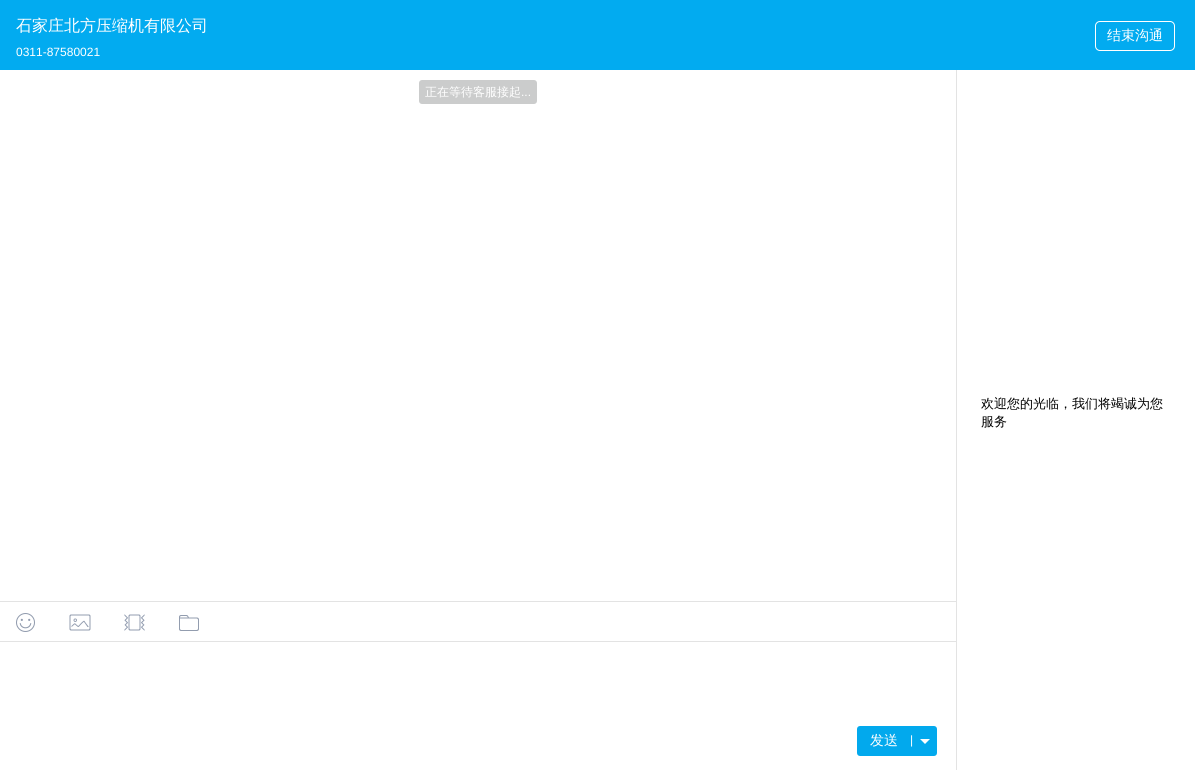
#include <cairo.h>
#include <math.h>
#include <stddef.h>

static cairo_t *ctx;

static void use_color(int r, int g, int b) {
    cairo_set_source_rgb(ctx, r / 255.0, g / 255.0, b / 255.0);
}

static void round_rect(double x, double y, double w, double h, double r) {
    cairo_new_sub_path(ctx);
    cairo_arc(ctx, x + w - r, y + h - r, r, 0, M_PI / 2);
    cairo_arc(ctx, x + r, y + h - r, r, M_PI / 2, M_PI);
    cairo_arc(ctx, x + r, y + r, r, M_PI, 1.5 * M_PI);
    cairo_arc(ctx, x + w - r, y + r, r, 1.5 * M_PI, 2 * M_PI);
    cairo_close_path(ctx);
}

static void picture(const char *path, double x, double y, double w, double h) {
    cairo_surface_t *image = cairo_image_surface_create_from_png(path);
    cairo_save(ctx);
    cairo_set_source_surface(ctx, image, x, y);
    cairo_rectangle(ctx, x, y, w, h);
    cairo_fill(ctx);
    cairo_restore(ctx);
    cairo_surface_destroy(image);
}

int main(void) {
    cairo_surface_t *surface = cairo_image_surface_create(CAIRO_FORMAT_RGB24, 1195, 770);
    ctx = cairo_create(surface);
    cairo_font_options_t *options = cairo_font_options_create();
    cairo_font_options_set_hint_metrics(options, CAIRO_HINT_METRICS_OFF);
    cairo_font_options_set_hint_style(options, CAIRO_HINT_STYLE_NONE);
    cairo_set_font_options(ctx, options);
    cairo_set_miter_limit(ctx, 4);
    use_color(255, 255, 255);
    cairo_paint(ctx);
    use_color(2, 171, 240);
    cairo_rectangle(ctx, 0, 0, 1195, 70);
    cairo_fill(ctx);
    cairo_select_font_face(ctx, "WenQuanYi Zen Hei Medium", CAIRO_FONT_SLANT_NORMAL, CAIRO_FONT_WEIGHT_NORMAL);
    cairo_set_font_size(ctx, 16);
    use_color(255, 255, 255);
    cairo_move_to(ctx, 16, 31);
    cairo_show_text(ctx, "石家庄北方压缩机有限公司");
    cairo_select_font_face(ctx, "Liberation Sans", CAIRO_FONT_SLANT_NORMAL, CAIRO_FONT_WEIGHT_NORMAL);
    cairo_set_font_size(ctx, 12);
    cairo_move_to(ctx, 16, 56);
    cairo_show_text(ctx, "0311-87580021");
    round_rect(1095.5, 21.5, 79, 29, 4.5);
    cairo_set_line_width(ctx, 1);
    cairo_stroke(ctx);
    cairo_select_font_face(ctx, "WenQuanYi Zen Hei Medium", CAIRO_FONT_SLANT_NORMAL, CAIRO_FONT_WEIGHT_NORMAL);
    cairo_set_font_size(ctx, 14);
    cairo_move_to(ctx, 1107, 40);
    cairo_show_text(ctx, "结束沟通");
    use_color(203, 204, 204);
    round_rect(419, 80, 118, 24, 3);
    cairo_fill(ctx);
    cairo_set_font_size(ctx, 12);
    use_color(255, 255, 255);
    cairo_move_to(ctx, 425, 96);
    cairo_show_text(ctx, "正在等待客服接起");
    cairo_select_font_face(ctx, "Liberation Sans", CAIRO_FONT_SLANT_NORMAL, CAIRO_FONT_WEIGHT_NORMAL);
    cairo_move_to(ctx, 521, 96);
    cairo_show_text(ctx, "...");
    use_color(227, 227, 227);
    cairo_rectangle(ctx, 956, 70, 1, 700);
    cairo_fill(ctx);
    cairo_rectangle(ctx, 0, 601, 957, 1);
    cairo_fill(ctx);
    cairo_rectangle(ctx, 0, 641, 957, 1);
    cairo_fill(ctx);
    picture("img1.png", 16, 613, 19, 19);
    picture("img2.png", 69, 614, 22, 17);
    picture("img3.png", 124, 614, 21, 17);
    picture("img4.png", 179, 615, 20, 16);
    use_color(2, 169, 237);
    round_rect(857, 726, 80, 30, 3);
    cairo_fill(ctx);
    cairo_select_font_face(ctx, "WenQuanYi Zen Hei Medium", CAIRO_FONT_SLANT_NORMAL, CAIRO_FONT_WEIGHT_NORMAL);
    cairo_set_font_size(ctx, 14);
    use_color(255, 255, 255);
    cairo_move_to(ctx, 870, 745);
    cairo_show_text(ctx, "发送");
    cairo_select_font_face(ctx, "Liberation Sans", CAIRO_FONT_SLANT_NORMAL, CAIRO_FONT_WEIGHT_NORMAL);
    cairo_set_font_size(ctx, 12);
    cairo_move_to(ctx, 910, 744);
    cairo_show_text(ctx, "|");
    cairo_new_path(ctx);
    cairo_move_to(ctx, 920, 739);
    cairo_line_to(ctx, 930, 739);
    cairo_line_to(ctx, 925, 744);
    cairo_close_path(ctx);
    cairo_fill(ctx);
    cairo_select_font_face(ctx, "WenQuanYi Zen Hei Medium", CAIRO_FONT_SLANT_NORMAL, CAIRO_FONT_WEIGHT_NORMAL);
    cairo_set_font_size(ctx, 13);
    use_color(0, 0, 0);
    cairo_move_to(ctx, 981, 408);
    cairo_show_text(ctx, "欢迎您的光临，我们将竭诚为您");
    cairo_move_to(ctx, 981, 426);
    cairo_show_text(ctx, "服务");
    cairo_surface_write_to_png(surface, "result.png");
    cairo_font_options_destroy(options);
    cairo_destroy(ctx);
    cairo_surface_destroy(surface);
    return 0;
}
